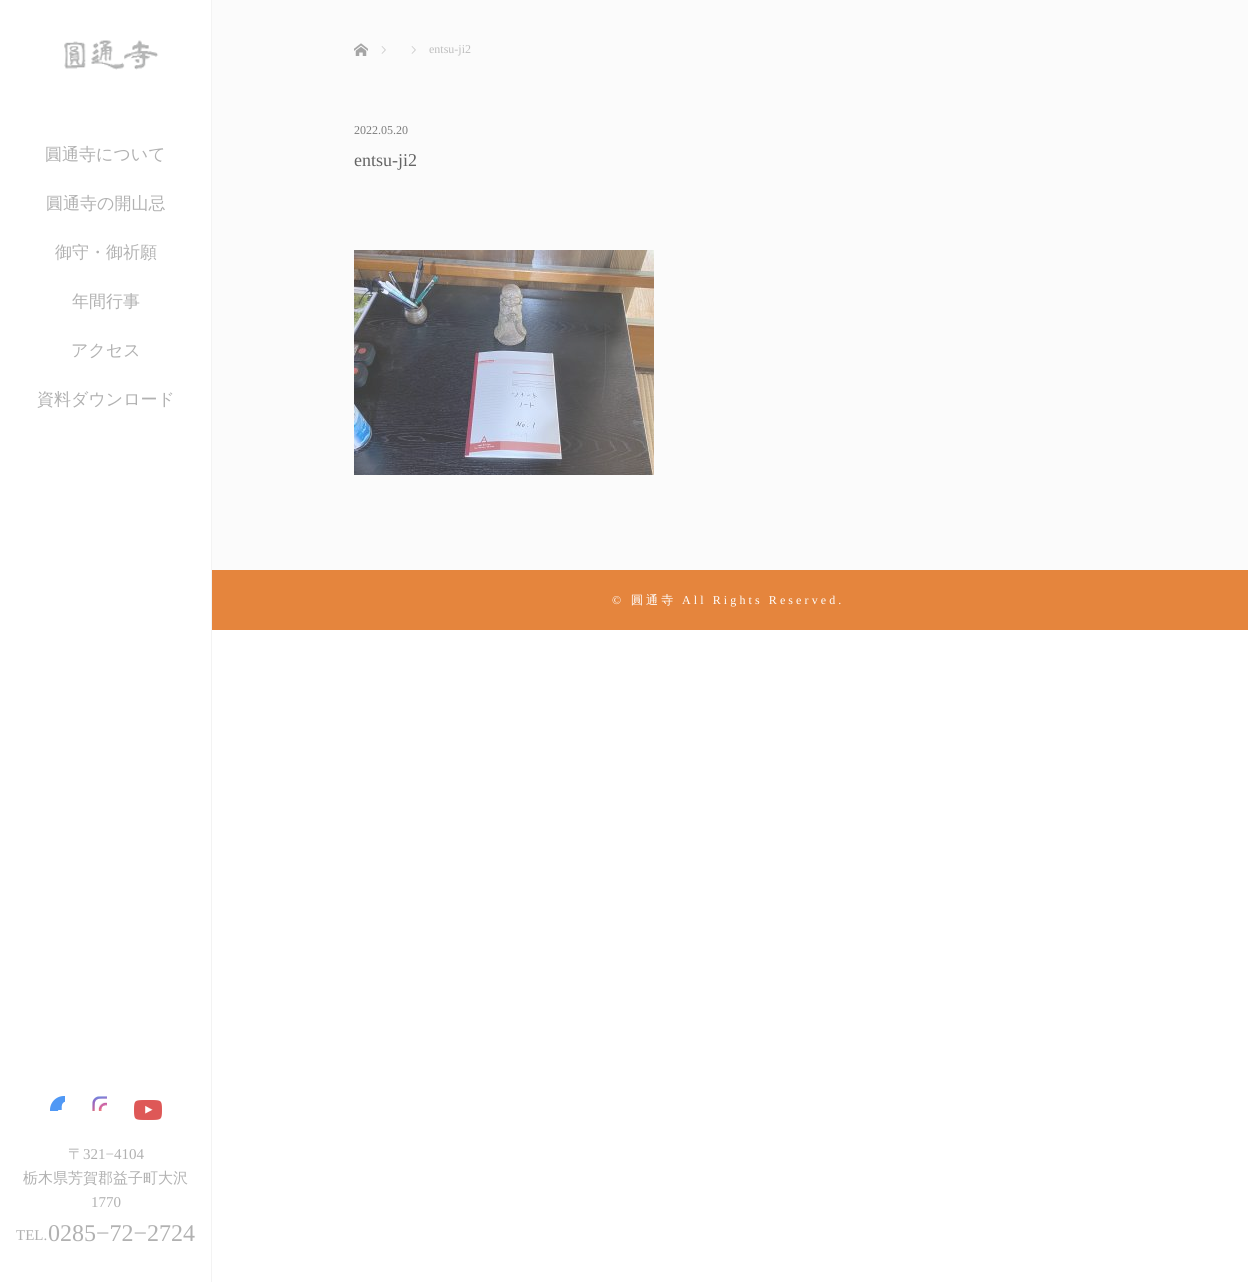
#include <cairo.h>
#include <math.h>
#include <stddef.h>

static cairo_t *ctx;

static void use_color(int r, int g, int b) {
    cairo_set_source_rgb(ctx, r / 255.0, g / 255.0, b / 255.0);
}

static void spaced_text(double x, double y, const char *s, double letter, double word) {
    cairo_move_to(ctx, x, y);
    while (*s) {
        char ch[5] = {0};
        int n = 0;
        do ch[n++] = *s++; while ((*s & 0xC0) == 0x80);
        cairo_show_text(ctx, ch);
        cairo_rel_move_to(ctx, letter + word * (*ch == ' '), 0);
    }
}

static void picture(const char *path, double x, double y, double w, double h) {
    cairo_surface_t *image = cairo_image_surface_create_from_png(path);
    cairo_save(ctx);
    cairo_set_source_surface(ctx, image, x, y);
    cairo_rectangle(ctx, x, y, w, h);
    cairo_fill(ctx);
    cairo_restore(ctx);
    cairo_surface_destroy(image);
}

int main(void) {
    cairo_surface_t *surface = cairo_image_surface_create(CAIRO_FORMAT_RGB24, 1248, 1282);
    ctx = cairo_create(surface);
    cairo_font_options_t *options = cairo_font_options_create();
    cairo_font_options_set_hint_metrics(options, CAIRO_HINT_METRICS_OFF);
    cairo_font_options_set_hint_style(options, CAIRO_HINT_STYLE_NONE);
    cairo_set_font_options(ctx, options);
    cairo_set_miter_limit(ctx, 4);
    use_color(255, 255, 255);
    cairo_paint(ctx);
    use_color(243, 243, 243);
    cairo_rectangle(ctx, 211, 0, 1, 1282);
    cairo_fill(ctx);
    picture("img1.png", 64, 40, 95, 30);
    cairo_select_font_face(ctx, "WenQuanYi Zen Hei Medium", CAIRO_FONT_SLANT_NORMAL, CAIRO_FONT_WEIGHT_NORMAL);
    cairo_set_font_size(ctx, 17);
    use_color(177, 177, 177);
    cairo_move_to(ctx, 45, 160);
    cairo_show_text(ctx, "圓通寺について");
    cairo_move_to(ctx, 46, 209);
    cairo_show_text(ctx, "圓通寺の開山忌");
    cairo_move_to(ctx, 55, 258);
    cairo_show_text(ctx, "御守・御祈願");
    cairo_move_to(ctx, 72, 307);
    cairo_show_text(ctx, "年間行事");
    cairo_move_to(ctx, 71, 356);
    cairo_show_text(ctx, "アクセス");
    cairo_move_to(ctx, 37, 405);
    cairo_show_text(ctx, "資料ダウンロード");
    picture("img2.png", 50, 1096, 15, 15);
    picture("img3.png", 92, 1096, 15, 15);
    picture("img4.png", 134, 1100, 28, 20);
    cairo_set_font_size(ctx, 15);
    cairo_move_to(ctx, 68, 1159);
    cairo_show_text(ctx, "〒");
    cairo_select_font_face(ctx, "Liberation Serif", CAIRO_FONT_SLANT_NORMAL, CAIRO_FONT_WEIGHT_NORMAL);
    cairo_move_to(ctx, 83, 1159);
    cairo_show_text(ctx, "321−4104");
    cairo_select_font_face(ctx, "WenQuanYi Zen Hei Medium", CAIRO_FONT_SLANT_NORMAL, CAIRO_FONT_WEIGHT_NORMAL);
    cairo_move_to(ctx, 23, 1183);
    cairo_show_text(ctx, "栃木県芳賀郡益子町大沢");
    cairo_select_font_face(ctx, "Liberation Serif", CAIRO_FONT_SLANT_NORMAL, CAIRO_FONT_WEIGHT_NORMAL);
    cairo_move_to(ctx, 91, 1207);
    cairo_show_text(ctx, "1770");
    cairo_move_to(ctx, 16, 1240);
    cairo_show_text(ctx, "TEL.");
    cairo_set_font_size(ctx, 24);
    cairo_move_to(ctx, 48, 1241);
    cairo_show_text(ctx, "0285−72−2724");
    use_color(251, 251, 251);
    cairo_rectangle(ctx, 212, 0, 1036, 570);
    cairo_fill(ctx);
    picture("img5.png", 354, 43, 14, 13);
    picture("img6.png", 381, 46, 5, 8);
    picture("img6.png", 411, 46, 5, 8);
    cairo_set_font_size(ctx, 12);
    use_color(190, 190, 190);
    cairo_move_to(ctx, 429, 53);
    cairo_show_text(ctx, "entsu-ji2");
    use_color(124, 124, 124);
    cairo_move_to(ctx, 354, 134);
    cairo_show_text(ctx, "2022.05.20");
    cairo_set_font_size(ctx, 18);
    use_color(100, 100, 100);
    cairo_move_to(ctx, 354, 166);
    cairo_show_text(ctx, "entsu-ji2");
    picture("img7.png", 354, 250, 300, 225);
    use_color(229, 133, 61);
    cairo_rectangle(ctx, 212, 570, 1036, 60);
    cairo_fill(ctx);
    cairo_set_font_size(ctx, 12);
    use_color(255, 255, 255);
    spaced_text(612, 604, "©", 3.1, 0);
    cairo_select_font_face(ctx, "WenQuanYi Zen Hei Medium", CAIRO_FONT_SLANT_NORMAL, CAIRO_FONT_WEIGHT_NORMAL);
    spaced_text(631, 604, "圓通寺", 3.1, 0);
    cairo_select_font_face(ctx, "Liberation Serif", CAIRO_FONT_SLANT_NORMAL, CAIRO_FONT_WEIGHT_NORMAL);
    spaced_text(682, 604, "All Rights Reserved.", 3.1, 0);
    cairo_surface_write_to_png(surface, "result.png");
    cairo_font_options_destroy(options);
    cairo_destroy(ctx);
    cairo_surface_destroy(surface);
    return 0;
}
